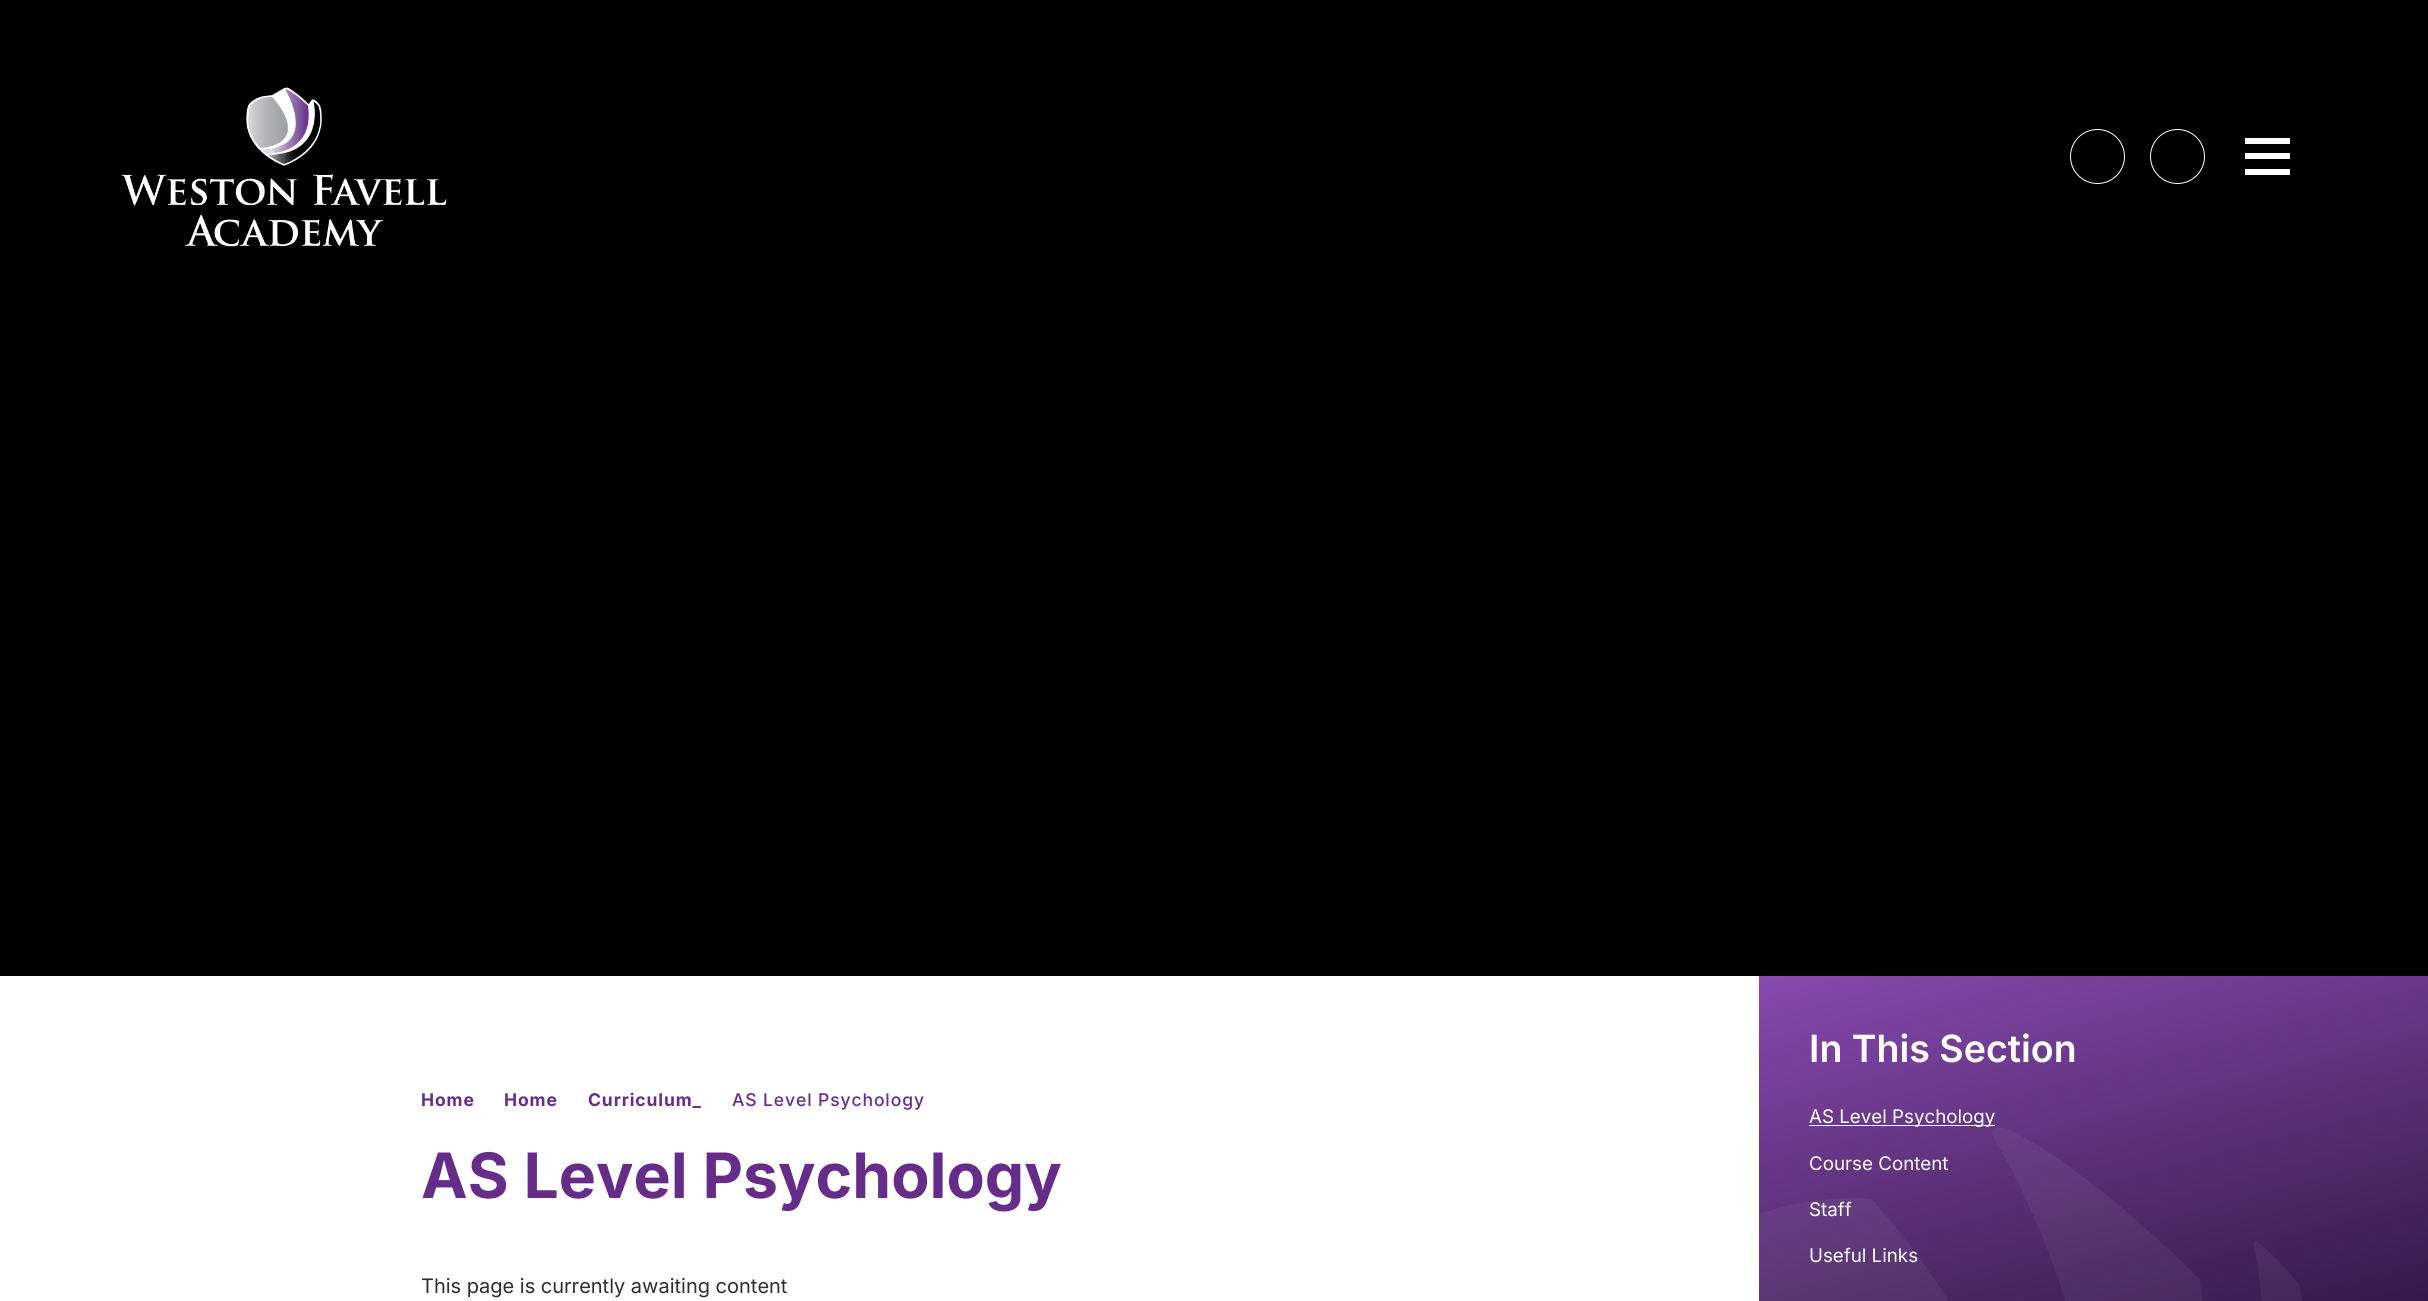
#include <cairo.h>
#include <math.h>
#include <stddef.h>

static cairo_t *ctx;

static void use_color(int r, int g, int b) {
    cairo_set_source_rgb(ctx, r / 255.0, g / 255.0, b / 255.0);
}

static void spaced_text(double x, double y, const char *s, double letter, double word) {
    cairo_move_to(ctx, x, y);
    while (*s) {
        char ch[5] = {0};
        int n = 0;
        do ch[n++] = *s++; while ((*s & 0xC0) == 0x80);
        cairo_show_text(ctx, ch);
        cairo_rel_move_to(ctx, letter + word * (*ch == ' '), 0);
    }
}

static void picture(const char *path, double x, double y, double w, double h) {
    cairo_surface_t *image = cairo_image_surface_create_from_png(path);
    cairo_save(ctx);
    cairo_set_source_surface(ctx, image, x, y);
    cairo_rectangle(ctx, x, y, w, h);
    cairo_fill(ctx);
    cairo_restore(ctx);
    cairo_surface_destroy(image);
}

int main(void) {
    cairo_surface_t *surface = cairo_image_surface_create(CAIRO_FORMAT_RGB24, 2428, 1301);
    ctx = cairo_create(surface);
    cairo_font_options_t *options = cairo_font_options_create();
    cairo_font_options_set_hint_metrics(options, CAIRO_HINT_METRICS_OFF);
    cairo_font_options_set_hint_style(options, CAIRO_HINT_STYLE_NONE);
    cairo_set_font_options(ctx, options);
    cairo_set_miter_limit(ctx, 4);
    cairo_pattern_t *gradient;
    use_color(255, 255, 255);
    cairo_paint(ctx);
    use_color(0, 0, 0);
    cairo_rectangle(ctx, 0, 0, 2428, 976);
    cairo_fill(ctx);
    picture("img1.png", 121, 87, 326, 160);
    cairo_arc(ctx, 2097.5, 156.5, 27, 0, 2 * M_PI);
    use_color(255, 255, 255);
    cairo_set_line_width(ctx, 1);
    cairo_stroke(ctx);
    cairo_arc(ctx, 2177.5, 156.5, 27, 0, 2 * M_PI);
    cairo_stroke(ctx);
    cairo_rectangle(ctx, 2245, 138, 45, 6);
    cairo_fill(ctx);
    cairo_rectangle(ctx, 2245, 153, 45, 6);
    cairo_fill(ctx);
    cairo_rectangle(ctx, 2245, 169, 45, 6);
    cairo_fill(ctx);
    cairo_select_font_face(ctx, "Inter", CAIRO_FONT_SLANT_NORMAL, CAIRO_FONT_WEIGHT_BOLD);
    cairo_set_font_size(ctx, 17.5);
    use_color(101, 45, 137);
    spaced_text(421, 1106, "Home", 0.9, 0);
    spaced_text(504, 1106, "Home", 0.9, 0);
    spaced_text(588, 1106, "Curriculum_", 0.9, 0);
    cairo_select_font_face(ctx, "Inter Medium", CAIRO_FONT_SLANT_NORMAL, CAIRO_FONT_WEIGHT_NORMAL);
    spaced_text(732, 1106, "AS Level Psychology", 0.9, 0);
    cairo_select_font_face(ctx, "Inter", CAIRO_FONT_SLANT_NORMAL, CAIRO_FONT_WEIGHT_BOLD);
    cairo_set_font_size(ctx, 62.5);
    cairo_move_to(ctx, 421, 1198);
    cairo_show_text(ctx, "AS Level Psychology");
    cairo_select_font_face(ctx, "Inter", CAIRO_FONT_SLANT_NORMAL, CAIRO_FONT_WEIGHT_NORMAL);
    cairo_set_font_size(ctx, 20);
    use_color(46, 46, 46);
    cairo_move_to(ctx, 421, 1293);
    cairo_show_text(ctx, "This page is currently awaiting content");
    gradient = cairo_pattern_create_linear(1989, 758, 2159, 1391);
    cairo_pattern_add_color_stop_rgba(gradient, 0, 0.627, 0.349, 0.804, 1);
    cairo_pattern_add_color_stop_rgba(gradient, 1, 0.2, 0.09, 0.275, 1);
    cairo_set_source(ctx, gradient);
    cairo_pattern_destroy(gradient);
    cairo_rectangle(ctx, 1759, 976, 669, 325);
    cairo_fill(ctx);
    cairo_select_font_face(ctx, "Inter SemiBold", CAIRO_FONT_SLANT_NORMAL, CAIRO_FONT_WEIGHT_NORMAL);
    cairo_set_font_size(ctx, 37.5);
    use_color(255, 255, 255);
    cairo_move_to(ctx, 1809, 1062);
    cairo_show_text(ctx, "In This Section");
    cairo_rectangle(ctx, 1809, 1125, 186, 1);
    cairo_fill(ctx);
    cairo_select_font_face(ctx, "Inter", CAIRO_FONT_SLANT_NORMAL, CAIRO_FONT_WEIGHT_NORMAL);
    cairo_set_font_size(ctx, 18.75);
    cairo_move_to(ctx, 1809, 1123);
    cairo_show_text(ctx, "AS Level Psychology");
    picture("img2.png", 1759, 1128, 543, 173);
    cairo_move_to(ctx, 1809, 1170);
    cairo_show_text(ctx, "Course Content");
    cairo_move_to(ctx, 1809, 1216);
    cairo_show_text(ctx, "Staff");
    cairo_move_to(ctx, 1809, 1262);
    cairo_show_text(ctx, "Useful Links");
    cairo_surface_write_to_png(surface, "result.png");
    cairo_font_options_destroy(options);
    cairo_destroy(ctx);
    cairo_surface_destroy(surface);
    return 0;
}
